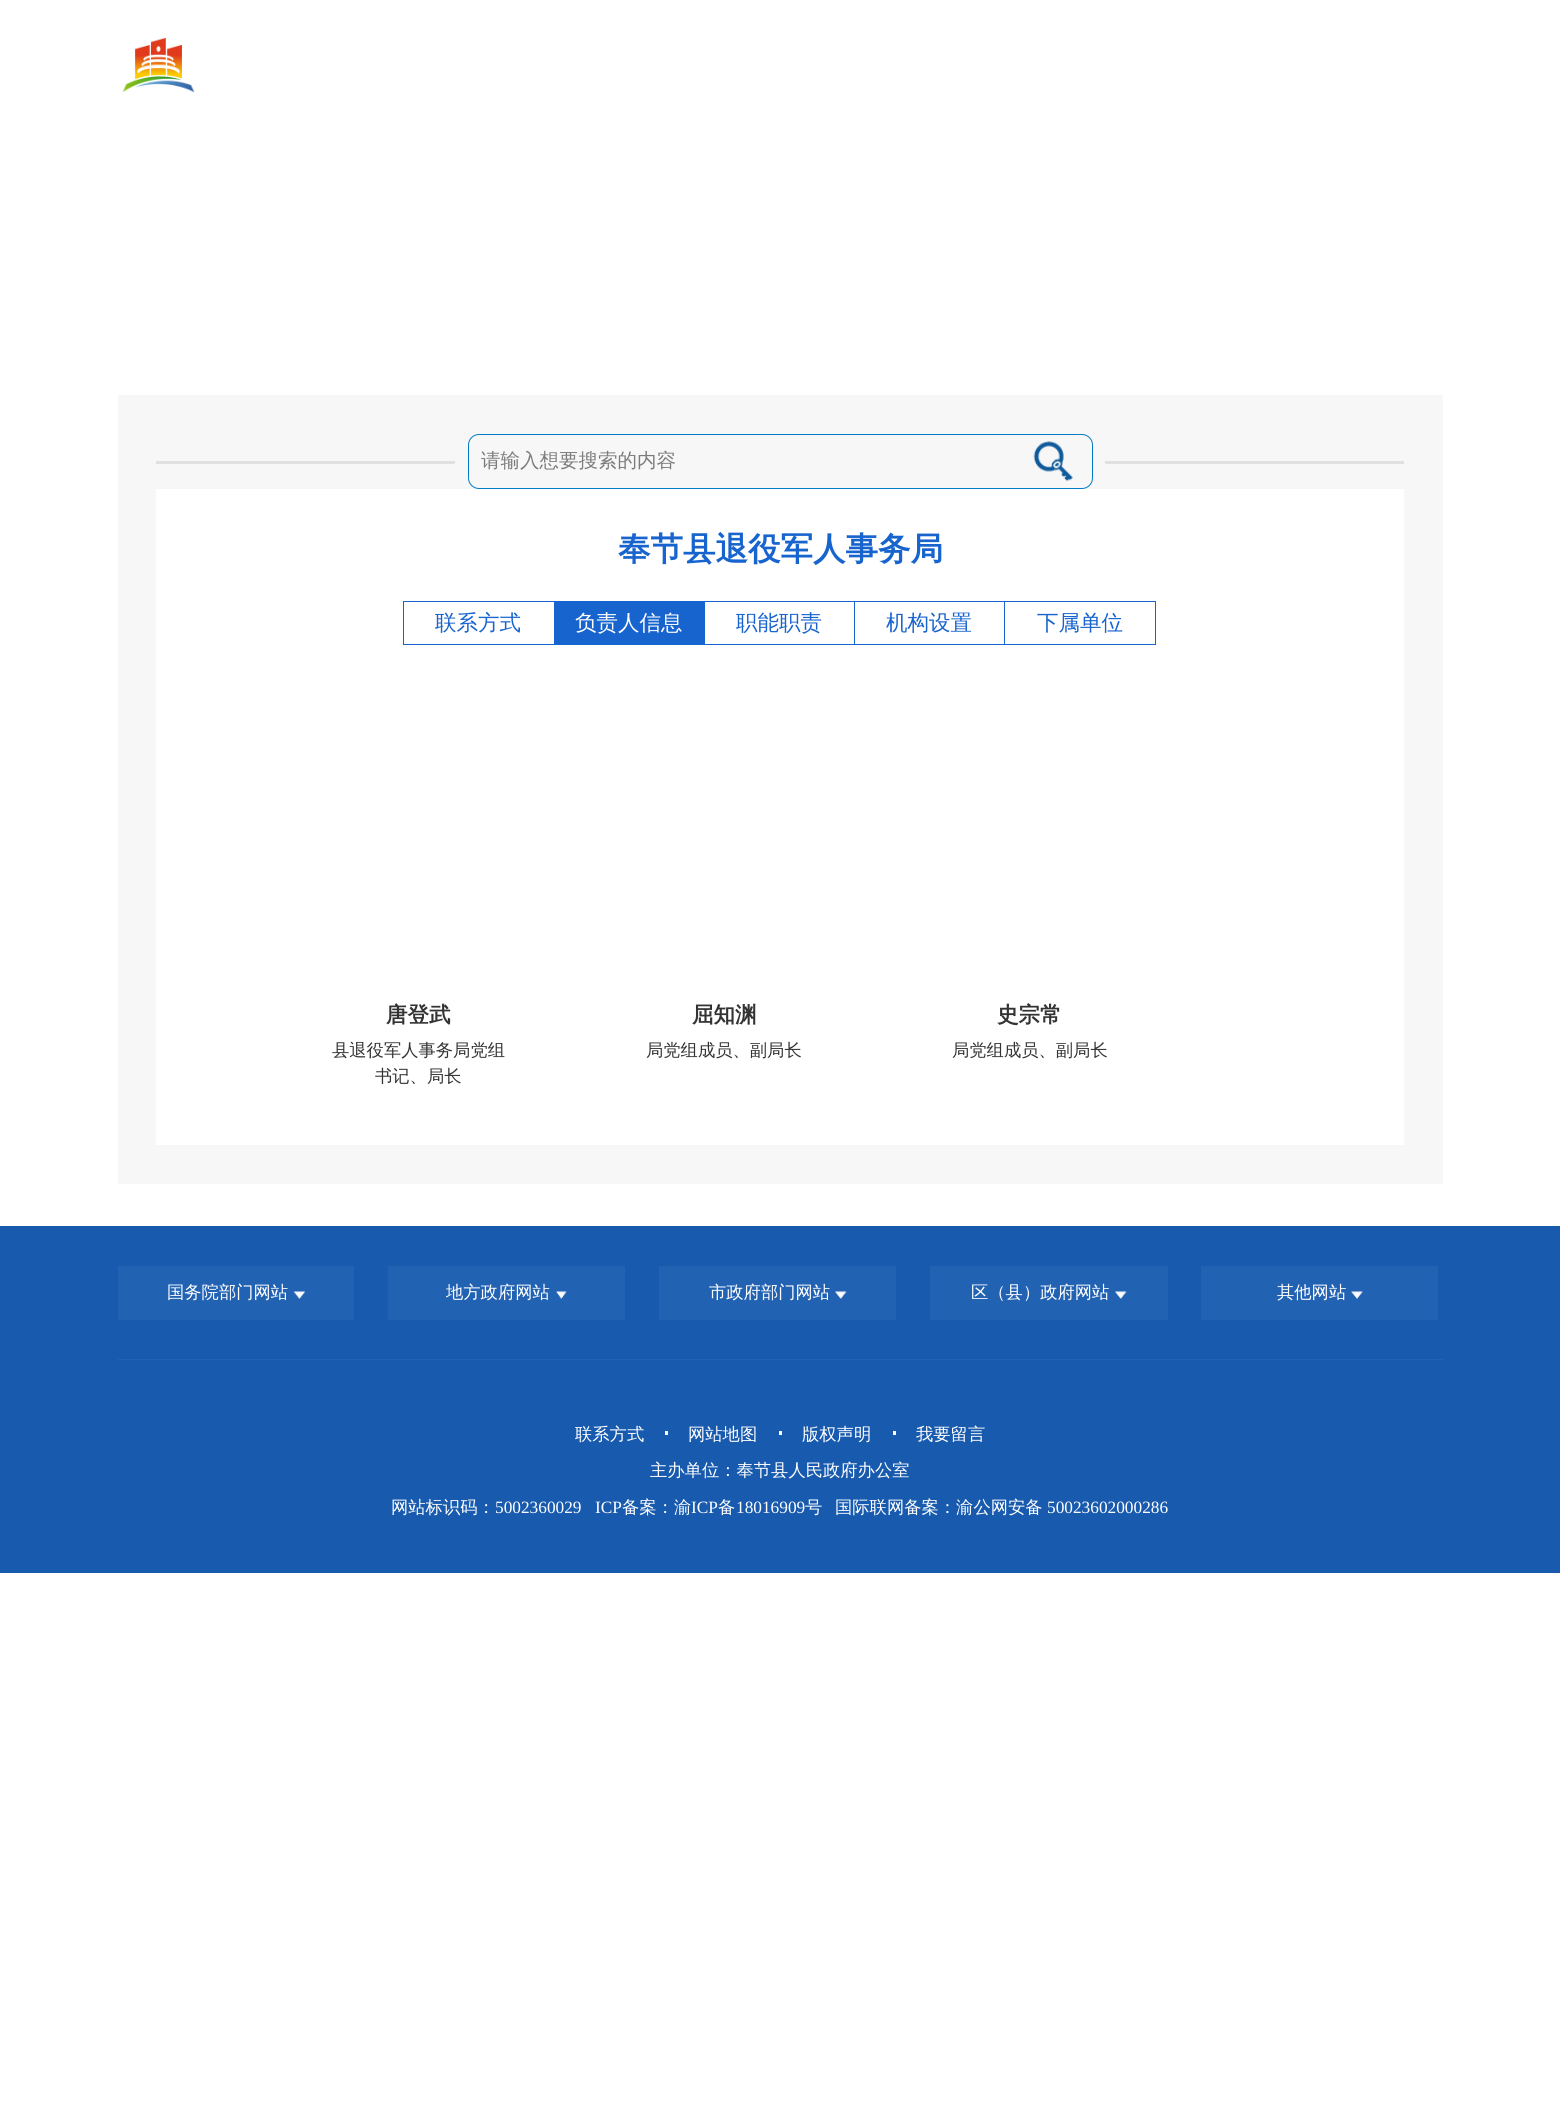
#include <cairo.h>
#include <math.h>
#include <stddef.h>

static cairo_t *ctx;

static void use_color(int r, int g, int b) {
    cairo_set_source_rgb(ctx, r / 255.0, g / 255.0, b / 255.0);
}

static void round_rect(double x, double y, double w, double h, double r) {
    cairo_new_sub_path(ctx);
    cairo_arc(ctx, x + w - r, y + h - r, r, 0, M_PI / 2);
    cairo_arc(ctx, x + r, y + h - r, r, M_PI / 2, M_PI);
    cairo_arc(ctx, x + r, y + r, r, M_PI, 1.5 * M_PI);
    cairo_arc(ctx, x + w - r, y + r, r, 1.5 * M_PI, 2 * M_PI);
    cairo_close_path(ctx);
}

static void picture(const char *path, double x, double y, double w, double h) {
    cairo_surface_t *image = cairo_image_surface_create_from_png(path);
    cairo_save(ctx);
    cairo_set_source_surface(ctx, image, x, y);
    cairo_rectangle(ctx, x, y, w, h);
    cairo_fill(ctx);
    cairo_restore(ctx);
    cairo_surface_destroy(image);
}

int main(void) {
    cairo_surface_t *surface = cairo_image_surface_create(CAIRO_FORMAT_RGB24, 1560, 2112);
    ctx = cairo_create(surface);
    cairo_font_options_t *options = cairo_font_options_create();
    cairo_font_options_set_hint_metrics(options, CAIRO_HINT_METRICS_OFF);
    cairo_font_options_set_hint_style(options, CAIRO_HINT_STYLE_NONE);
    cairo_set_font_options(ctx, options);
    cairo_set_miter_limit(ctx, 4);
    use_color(255, 255, 255);
    cairo_paint(ctx);
    picture("img1.png", 122, 37, 73, 56);
    use_color(247, 247, 247);
    cairo_rectangle(ctx, 118, 395, 1325, 789);
    cairo_fill(ctx);
    use_color(224, 224, 224);
    cairo_rectangle(ctx, 156, 461, 299, 3);
    cairo_fill(ctx);
    round_rect(468.5, 434.5, 624, 54, 10.5);
    use_color(0, 124, 197);
    cairo_set_line_width(ctx, 1);
    cairo_stroke(ctx);
    cairo_select_font_face(ctx, "WenQuanYi Zen Hei Medium", CAIRO_FONT_SLANT_NORMAL, CAIRO_FONT_WEIGHT_NORMAL);
    cairo_set_font_size(ctx, 19.5);
    use_color(124, 124, 124);
    cairo_move_to(ctx, 481, 467);
    cairo_show_text(ctx, "请输入想要搜索的内容");
    picture("img2.png", 1033, 441, 40, 41);
    use_color(224, 224, 224);
    cairo_rectangle(ctx, 1105, 461, 299, 3);
    cairo_fill(ctx);
    use_color(255, 255, 255);
    cairo_rectangle(ctx, 156, 489, 1248, 656);
    cairo_fill(ctx);
    cairo_select_font_face(ctx, "WenQuanYi Zen Hei", CAIRO_FONT_SLANT_NORMAL, CAIRO_FONT_WEIGHT_BOLD);
    cairo_set_font_size(ctx, 32.5);
    use_color(23, 100, 206);
    cairo_move_to(ctx, 618, 560);
    cairo_show_text(ctx, "奉节县退役军人事务局");
    cairo_rectangle(ctx, 403.5, 601.5, 151, 43);
    cairo_stroke(ctx);
    cairo_select_font_face(ctx, "WenQuanYi Zen Hei Medium", CAIRO_FONT_SLANT_NORMAL, CAIRO_FONT_WEIGHT_NORMAL);
    cairo_set_font_size(ctx, 21.5);
    cairo_move_to(ctx, 435, 630);
    cairo_show_text(ctx, "联系方式");
    cairo_rectangle(ctx, 555, 601, 149, 44);
    cairo_fill(ctx);
    use_color(255, 255, 255);
    cairo_move_to(ctx, 575, 630);
    cairo_show_text(ctx, "负责人信息");
    cairo_rectangle(ctx, 704.5, 601.5, 150, 43);
    use_color(23, 100, 206);
    cairo_stroke(ctx);
    cairo_move_to(ctx, 736, 630);
    cairo_show_text(ctx, "职能职责");
    cairo_rectangle(ctx, 854.5, 601.5, 150, 43);
    cairo_stroke(ctx);
    cairo_move_to(ctx, 886, 630);
    cairo_show_text(ctx, "机构设置");
    cairo_rectangle(ctx, 1004.5, 601.5, 151, 43);
    cairo_stroke(ctx);
    cairo_move_to(ctx, 1037, 630);
    cairo_show_text(ctx, "下属单位");
    cairo_select_font_face(ctx, "WenQuanYi Zen Hei", CAIRO_FONT_SLANT_NORMAL, CAIRO_FONT_WEIGHT_BOLD);
    use_color(51, 51, 51);
    cairo_move_to(ctx, 386, 1022);
    cairo_show_text(ctx, "唐登武");
    cairo_select_font_face(ctx, "WenQuanYi Zen Hei Medium", CAIRO_FONT_SLANT_NORMAL, CAIRO_FONT_WEIGHT_NORMAL);
    cairo_set_font_size(ctx, 17.3);
    cairo_move_to(ctx, 332, 1056);
    cairo_show_text(ctx, "县退役军人事务局党组");
    cairo_move_to(ctx, 375, 1082);
    cairo_show_text(ctx, "书记、局长");
    cairo_select_font_face(ctx, "WenQuanYi Zen Hei", CAIRO_FONT_SLANT_NORMAL, CAIRO_FONT_WEIGHT_BOLD);
    cairo_set_font_size(ctx, 21.5);
    cairo_move_to(ctx, 692, 1022);
    cairo_show_text(ctx, "屈知渊");
    cairo_select_font_face(ctx, "WenQuanYi Zen Hei Medium", CAIRO_FONT_SLANT_NORMAL, CAIRO_FONT_WEIGHT_NORMAL);
    cairo_set_font_size(ctx, 17.3);
    cairo_move_to(ctx, 646, 1056);
    cairo_show_text(ctx, "局党组成员、副局长");
    cairo_select_font_face(ctx, "WenQuanYi Zen Hei", CAIRO_FONT_SLANT_NORMAL, CAIRO_FONT_WEIGHT_BOLD);
    cairo_set_font_size(ctx, 21.5);
    cairo_move_to(ctx, 997, 1022);
    cairo_show_text(ctx, "史宗常");
    cairo_select_font_face(ctx, "WenQuanYi Zen Hei Medium", CAIRO_FONT_SLANT_NORMAL, CAIRO_FONT_WEIGHT_NORMAL);
    cairo_set_font_size(ctx, 17.3);
    cairo_move_to(ctx, 952, 1056);
    cairo_show_text(ctx, "局党组成员、副局长");
    use_color(24, 90, 174);
    cairo_rectangle(ctx, 0, 1226, 1560, 347);
    cairo_fill(ctx);
    use_color(34, 98, 179);
    cairo_rectangle(ctx, 118, 1359, 1325, 1);
    cairo_fill(ctx);
    cairo_rectangle(ctx, 118, 1266, 236, 54);
    cairo_fill(ctx);
    use_color(255, 255, 255);
    cairo_move_to(ctx, 167, 1298);
    cairo_show_text(ctx, "国务院部门网站");
    picture("img3.png", 293, 1291, 12, 8);
    use_color(34, 98, 179);
    cairo_rectangle(ctx, 388, 1266, 237, 54);
    cairo_fill(ctx);
    use_color(255, 255, 255);
    cairo_move_to(ctx, 446, 1298);
    cairo_show_text(ctx, "地方政府网站");
    picture("img4.png", 556, 1291, 11, 8);
    use_color(34, 98, 179);
    cairo_rectangle(ctx, 659, 1266, 237, 54);
    cairo_fill(ctx);
    use_color(255, 255, 255);
    cairo_move_to(ctx, 709, 1298);
    cairo_show_text(ctx, "市政府部门网站");
    picture("img5.png", 835, 1291, 12, 8);
    use_color(34, 98, 179);
    cairo_rectangle(ctx, 930, 1266, 238, 54);
    cairo_fill(ctx);
    use_color(255, 255, 255);
    cairo_move_to(ctx, 971, 1298);
    cairo_show_text(ctx, "区（县）政府网站");
    picture("img5.png", 1115, 1291, 12, 8);
    use_color(34, 98, 179);
    cairo_rectangle(ctx, 1201, 1266, 237, 54);
    cairo_fill(ctx);
    use_color(255, 255, 255);
    cairo_move_to(ctx, 1277, 1298);
    cairo_show_text(ctx, "其他网站");
    picture("img6.png", 1351, 1291, 12, 8);
    cairo_move_to(ctx, 575, 1440);
    cairo_show_text(ctx, "联系方式");
    cairo_rectangle(ctx, 665, 1431, 3, 4);
    cairo_fill(ctx);
    cairo_move_to(ctx, 688, 1440);
    cairo_show_text(ctx, "网站地图");
    cairo_rectangle(ctx, 779, 1431, 3, 4);
    cairo_fill(ctx);
    cairo_move_to(ctx, 802, 1440);
    cairo_show_text(ctx, "版权声明");
    cairo_rectangle(ctx, 893, 1431, 3, 4);
    cairo_fill(ctx);
    cairo_move_to(ctx, 916, 1440);
    cairo_show_text(ctx, "我要留言");
    cairo_move_to(ctx, 650, 1476);
    cairo_show_text(ctx, "主办单位：奉节县人民政府办公室");
    cairo_move_to(ctx, 391, 1513);
    cairo_show_text(ctx, "网站标识码：");
    cairo_select_font_face(ctx, "Liberation Serif", CAIRO_FONT_SLANT_NORMAL, CAIRO_FONT_WEIGHT_NORMAL);
    cairo_move_to(ctx, 495, 1513);
    cairo_show_text(ctx, "5002360029");
    cairo_move_to(ctx, 595, 1513);
    cairo_show_text(ctx, "ICP");
    cairo_select_font_face(ctx, "WenQuanYi Zen Hei Medium", CAIRO_FONT_SLANT_NORMAL, CAIRO_FONT_WEIGHT_NORMAL);
    cairo_move_to(ctx, 622, 1513);
    cairo_show_text(ctx, "备案：渝");
    cairo_select_font_face(ctx, "Liberation Serif", CAIRO_FONT_SLANT_NORMAL, CAIRO_FONT_WEIGHT_NORMAL);
    cairo_move_to(ctx, 691, 1513);
    cairo_show_text(ctx, "ICP");
    cairo_select_font_face(ctx, "WenQuanYi Zen Hei Medium", CAIRO_FONT_SLANT_NORMAL, CAIRO_FONT_WEIGHT_NORMAL);
    cairo_move_to(ctx, 718, 1513);
    cairo_show_text(ctx, "备");
    cairo_select_font_face(ctx, "Liberation Serif", CAIRO_FONT_SLANT_NORMAL, CAIRO_FONT_WEIGHT_NORMAL);
    cairo_move_to(ctx, 736, 1513);
    cairo_show_text(ctx, "18016909");
    cairo_select_font_face(ctx, "WenQuanYi Zen Hei Medium", CAIRO_FONT_SLANT_NORMAL, CAIRO_FONT_WEIGHT_NORMAL);
    cairo_move_to(ctx, 805, 1513);
    cairo_show_text(ctx, "号");
    cairo_move_to(ctx, 835, 1513);
    cairo_show_text(ctx, "国际联网备案：渝公网安备");
    cairo_select_font_face(ctx, "Liberation Serif", CAIRO_FONT_SLANT_NORMAL, CAIRO_FONT_WEIGHT_NORMAL);
    cairo_move_to(ctx, 1047, 1513);
    cairo_show_text(ctx, "50023602000286");
    cairo_surface_write_to_png(surface, "result.png");
    cairo_font_options_destroy(options);
    cairo_destroy(ctx);
    cairo_surface_destroy(surface);
    return 0;
}
